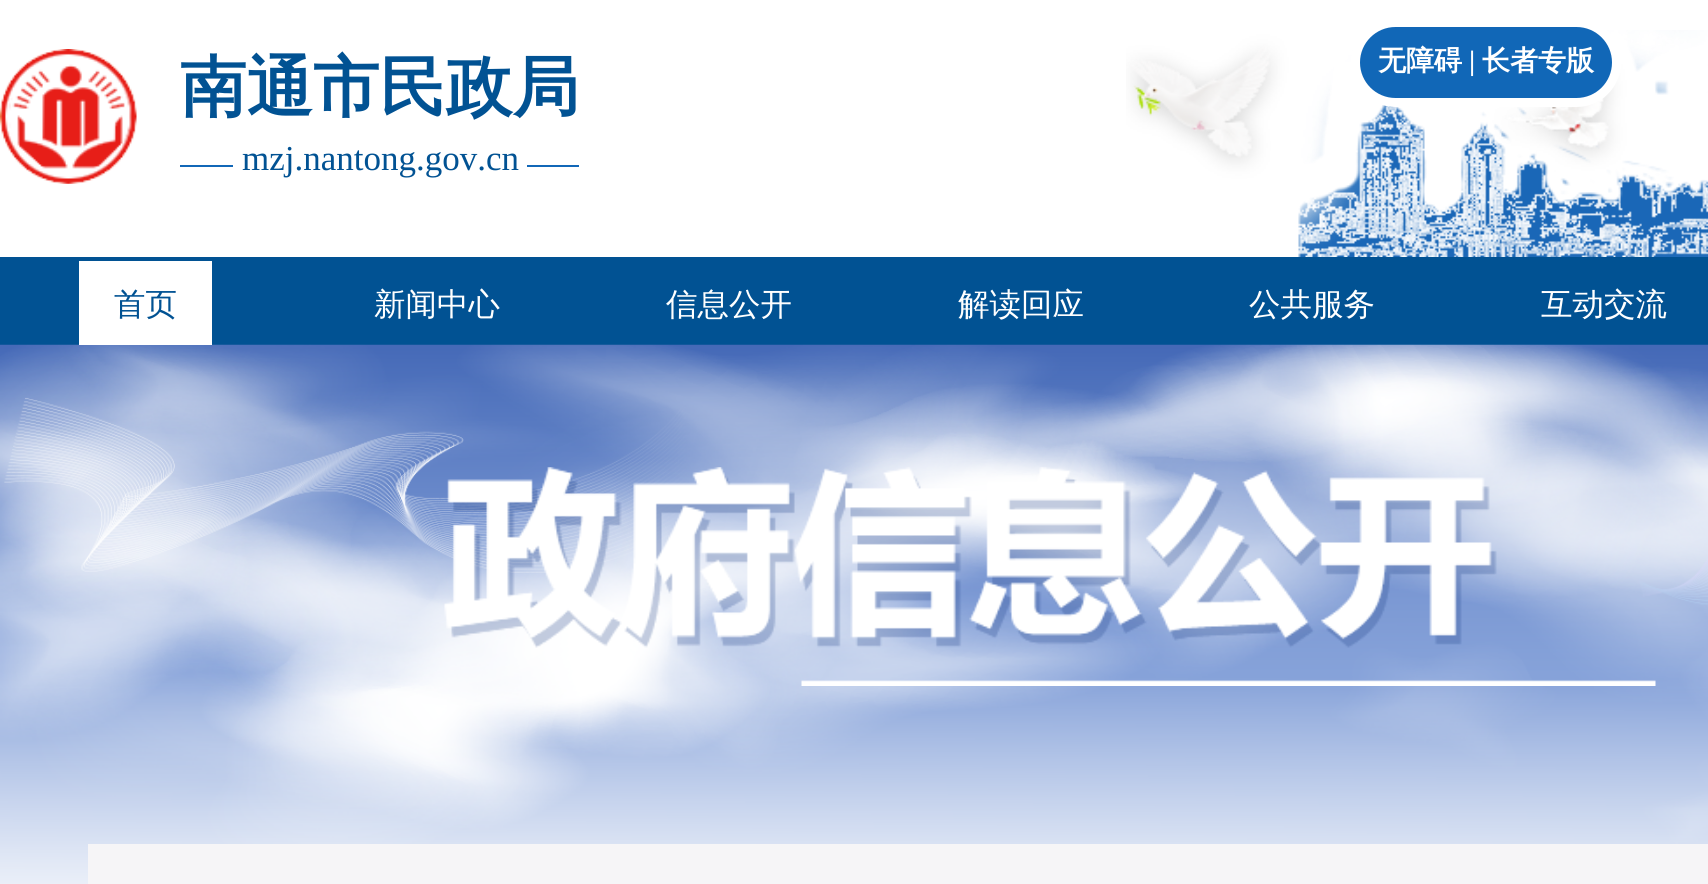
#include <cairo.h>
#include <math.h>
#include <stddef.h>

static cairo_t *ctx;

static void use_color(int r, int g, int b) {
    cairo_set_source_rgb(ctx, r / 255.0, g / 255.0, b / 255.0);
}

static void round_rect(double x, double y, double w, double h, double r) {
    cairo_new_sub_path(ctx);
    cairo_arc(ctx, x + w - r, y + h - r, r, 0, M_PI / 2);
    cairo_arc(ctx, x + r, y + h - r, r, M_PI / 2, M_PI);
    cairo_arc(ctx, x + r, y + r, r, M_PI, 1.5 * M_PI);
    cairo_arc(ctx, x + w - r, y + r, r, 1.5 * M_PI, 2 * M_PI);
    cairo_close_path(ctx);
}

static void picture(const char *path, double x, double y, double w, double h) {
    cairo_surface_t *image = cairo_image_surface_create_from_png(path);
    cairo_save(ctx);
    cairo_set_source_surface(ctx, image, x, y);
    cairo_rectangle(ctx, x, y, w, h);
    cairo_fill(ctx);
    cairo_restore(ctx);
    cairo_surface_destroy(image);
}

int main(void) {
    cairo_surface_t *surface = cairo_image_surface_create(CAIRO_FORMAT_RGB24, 1708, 884);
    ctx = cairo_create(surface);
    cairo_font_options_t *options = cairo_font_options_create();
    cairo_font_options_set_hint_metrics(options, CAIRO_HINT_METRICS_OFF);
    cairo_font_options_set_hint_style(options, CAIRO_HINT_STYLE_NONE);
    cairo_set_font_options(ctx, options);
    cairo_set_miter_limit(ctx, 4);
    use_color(255, 255, 255);
    cairo_paint(ctx);
    picture("img1.png", 1126, 30, 582, 227);
    picture("img2.png", 0, 49, 137, 135);
    cairo_select_font_face(ctx, "WenQuanYi Zen Hei", CAIRO_FONT_SLANT_NORMAL, CAIRO_FONT_WEIGHT_BOLD);
    cairo_set_font_size(ctx, 66.5);
    use_color(1, 82, 147);
    cairo_move_to(ctx, 180, 110);
    cairo_show_text(ctx, "南通市民政局");
    use_color(17, 103, 183);
    cairo_rectangle(ctx, 180, 165, 53, 2);
    cairo_fill(ctx);
    cairo_select_font_face(ctx, "Liberation Serif", CAIRO_FONT_SLANT_NORMAL, CAIRO_FONT_WEIGHT_NORMAL);
    cairo_set_font_size(ctx, 35);
    use_color(1, 82, 147);
    cairo_move_to(ctx, 242, 170);
    cairo_show_text(ctx, "mzj.nantong.gov.cn");
    use_color(17, 103, 183);
    cairo_rectangle(ctx, 527, 165, 52, 2);
    cairo_fill(ctx);
    round_rect(1355.5, 22.5, 261, 80, 40);
    cairo_fill_preserve(ctx);
    use_color(255, 255, 255);
    cairo_set_line_width(ctx, 9);
    cairo_stroke(ctx);
    cairo_select_font_face(ctx, "WenQuanYi Zen Hei", CAIRO_FONT_SLANT_NORMAL, CAIRO_FONT_WEIGHT_BOLD);
    cairo_set_font_size(ctx, 28);
    cairo_move_to(ctx, 1378, 70);
    cairo_show_text(ctx, "无障碍");
    cairo_select_font_face(ctx, "Liberation Serif", CAIRO_FONT_SLANT_NORMAL, CAIRO_FONT_WEIGHT_BOLD);
    cairo_move_to(ctx, 1469, 70);
    cairo_show_text(ctx, "|");
    cairo_select_font_face(ctx, "WenQuanYi Zen Hei", CAIRO_FONT_SLANT_NORMAL, CAIRO_FONT_WEIGHT_BOLD);
    cairo_move_to(ctx, 1482, 70);
    cairo_show_text(ctx, "长者专版");
    use_color(1, 82, 147);
    cairo_rectangle(ctx, 0, 257, 1708, 88);
    cairo_fill(ctx);
    picture("img3.png", 0, 344, 1708, 540);
    use_color(255, 255, 255);
    cairo_rectangle(ctx, 79, 261, 133, 84);
    cairo_fill(ctx);
    cairo_select_font_face(ctx, "WenQuanYi Zen Hei Medium", CAIRO_FONT_SLANT_NORMAL, CAIRO_FONT_WEIGHT_NORMAL);
    cairo_set_font_size(ctx, 31.5);
    use_color(1, 82, 147);
    cairo_move_to(ctx, 114, 315);
    cairo_show_text(ctx, "首页");
    use_color(255, 255, 255);
    cairo_move_to(ctx, 374, 315);
    cairo_show_text(ctx, "新闻中心");
    cairo_move_to(ctx, 666, 315);
    cairo_show_text(ctx, "信息公开");
    cairo_move_to(ctx, 958, 315);
    cairo_show_text(ctx, "解读回应");
    cairo_move_to(ctx, 1249, 315);
    cairo_show_text(ctx, "公共服务");
    cairo_move_to(ctx, 1541, 315);
    cairo_show_text(ctx, "互动交流");
    picture("img4.png", 444, 467, 1212, 219);
    use_color(246, 245, 247);
    cairo_rectangle(ctx, 88, 844, 1620, 40);
    cairo_fill(ctx);
    cairo_surface_write_to_png(surface, "result.png");
    cairo_font_options_destroy(options);
    cairo_destroy(ctx);
    cairo_surface_destroy(surface);
    return 0;
}
